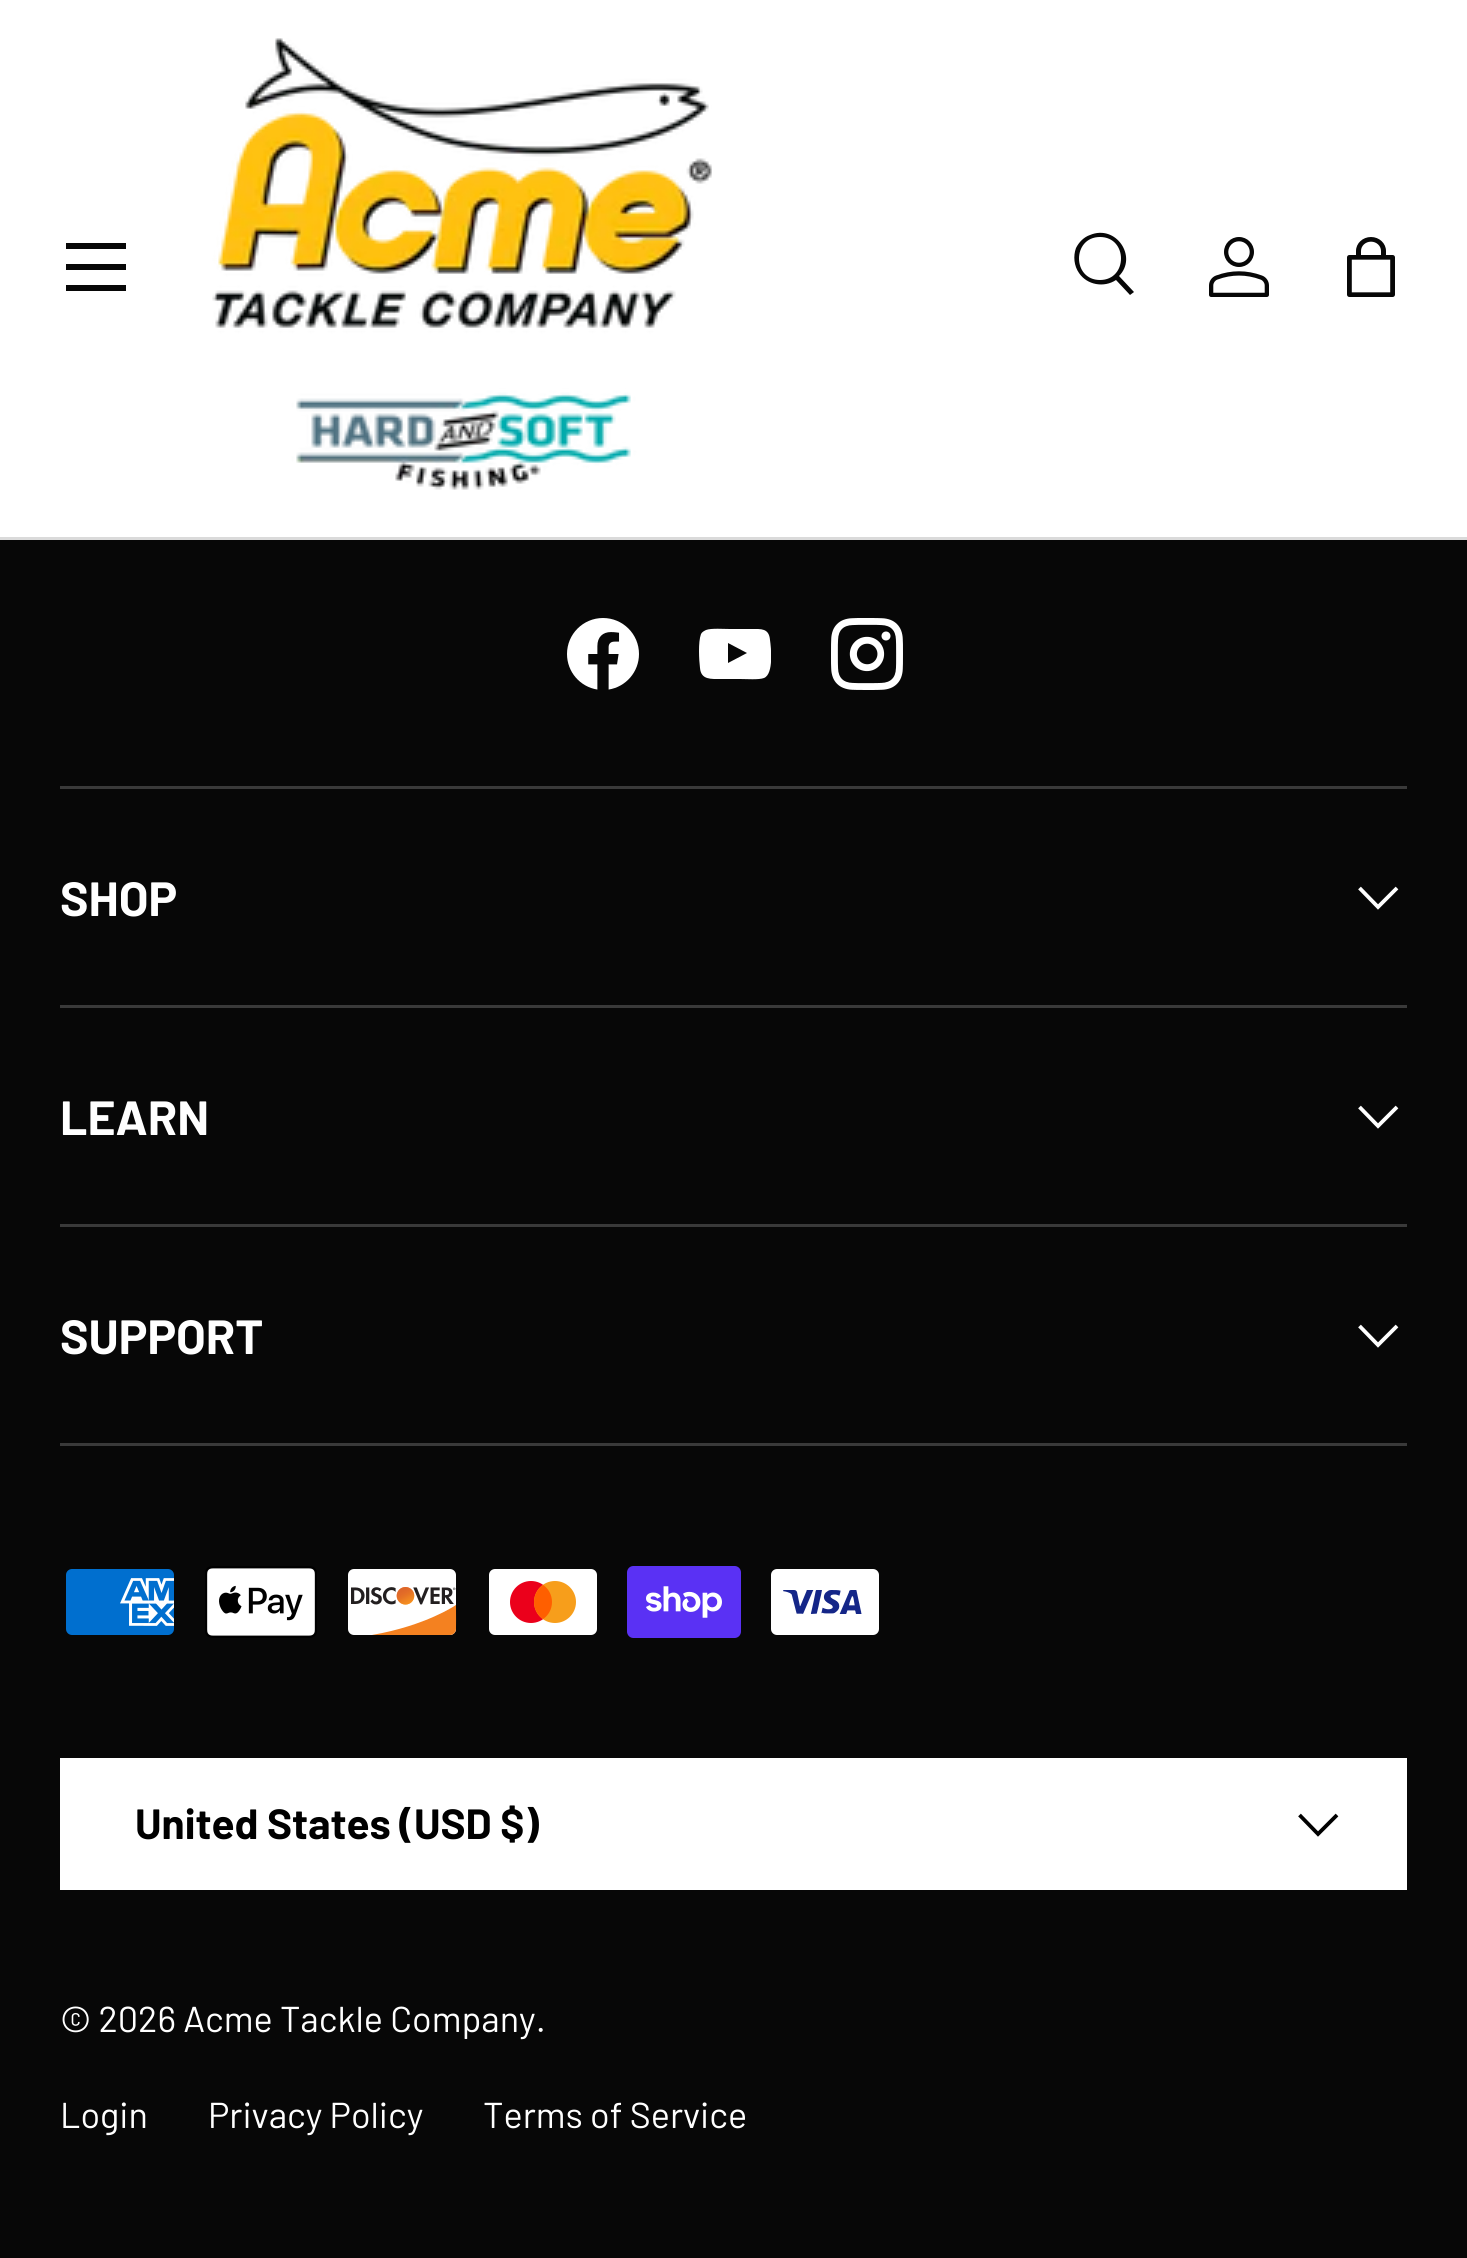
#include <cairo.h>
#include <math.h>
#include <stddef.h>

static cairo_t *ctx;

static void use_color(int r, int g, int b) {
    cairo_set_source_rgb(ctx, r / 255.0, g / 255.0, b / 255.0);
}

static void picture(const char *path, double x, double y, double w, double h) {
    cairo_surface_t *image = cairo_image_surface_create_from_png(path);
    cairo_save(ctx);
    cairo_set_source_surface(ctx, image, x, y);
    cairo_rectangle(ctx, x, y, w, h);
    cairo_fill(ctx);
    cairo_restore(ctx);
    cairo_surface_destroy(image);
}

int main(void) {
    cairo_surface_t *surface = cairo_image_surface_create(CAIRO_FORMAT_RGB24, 1467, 2258);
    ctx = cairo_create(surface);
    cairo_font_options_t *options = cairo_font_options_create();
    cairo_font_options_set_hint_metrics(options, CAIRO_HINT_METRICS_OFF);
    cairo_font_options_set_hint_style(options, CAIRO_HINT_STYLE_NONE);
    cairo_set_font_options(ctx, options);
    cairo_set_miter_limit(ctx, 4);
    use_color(7, 7, 7);
    cairo_paint(ctx);
    use_color(255, 255, 255);
    cairo_rectangle(ctx, 0, 0, 1467, 537);
    cairo_fill(ctx);
    use_color(218, 218, 218);
    cairo_rectangle(ctx, 0, 537, 1467, 3);
    cairo_fill(ctx);
    use_color(7, 7, 7);
    cairo_rectangle(ctx, 66, 243, 60, 6);
    cairo_fill(ctx);
    cairo_rectangle(ctx, 66, 285, 60, 6);
    cairo_fill(ctx);
    cairo_rectangle(ctx, 66, 264, 60, 6);
    cairo_fill(ctx);
    picture("img1.png", 212, 38, 500, 452);
    cairo_new_path(ctx);
    cairo_move_to(ctx, 1119, 276);
    cairo_line_to(ctx, 1134, 292);
    cairo_line_to(ctx, 1130, 295);
    cairo_line_to(ctx, 1116, 280);
    cairo_curve_to(ctx, 1104, 288, 1087, 285, 1079, 273);
    cairo_curve_to(ctx, 1074, 266, 1073, 256, 1076, 248);
    cairo_curve_to(ctx, 1079, 242, 1084, 237, 1090, 235);
    cairo_curve_to(ctx, 1116, 224, 1138, 257, 1119, 276);
    cairo_close_path(ctx);
    cairo_move_to(ctx, 1100, 280);
    cairo_curve_to(ctx, 1128, 280, 1128, 237, 1100, 237);
    cairo_curve_to(ctx, 1072, 237, 1072, 280, 1100, 280);
    cairo_close_path(ctx);
    cairo_fill(ctx);
    picture("img2.png", 1209, 237, 60, 60);
    picture("img3.png", 1347, 237, 48, 60);
    picture("img4.png", 567, 618, 72, 72);
    cairo_save(ctx);
    cairo_rectangle(ctx, 699, 618, 72, 72);
    cairo_clip(ctx);
    use_color(255, 255, 255);
    cairo_new_path(ctx);
    cairo_move_to(ctx, 728, 663);
    cairo_line_to(ctx, 728, 643);
    cairo_line_to(ctx, 747, 653);
    cairo_close_path(ctx);
    cairo_move_to(ctx, 770, 640);
    cairo_curve_to(ctx, 769, 628, 761, 629, 752, 629);
    cairo_line_to(ctx, 730, 629);
    cairo_curve_to(ctx, 724, 629, 711, 628, 706, 630);
    cairo_curve_to(ctx, 704, 631, 702, 632, 701, 634);
    cairo_curve_to(ctx, 698, 642, 699, 660, 700, 668);
    cairo_curve_to(ctx, 701, 680, 711, 679, 721, 679);
    cairo_line_to(ctx, 740, 679);
    cairo_curve_to(ctx, 746, 679, 759, 680, 764, 678);
    cairo_curve_to(ctx, 774, 674, 771, 647, 770, 640);
    cairo_close_path(ctx);
    cairo_fill(ctx);
    cairo_restore(ctx);
    picture("img5.png", 831, 618, 72, 72);
    use_color(57, 57, 57);
    cairo_rectangle(ctx, 60, 786, 1347, 3);
    cairo_fill(ctx);
    cairo_rectangle(ctx, 60, 1005, 1347, 3);
    cairo_fill(ctx);
    cairo_select_font_face(ctx, "Barlow", CAIRO_FONT_SLANT_NORMAL, CAIRO_FONT_WEIGHT_BOLD);
    cairo_set_font_size(ctx, 48);
    use_color(255, 255, 255);
    cairo_move_to(ctx, 60, 916);
    cairo_show_text(ctx, "SHOP");
    cairo_new_path(ctx);
    cairo_move_to(ctx, 1397, 888);
    cairo_line_to(ctx, 1378, 907);
    cairo_line_to(ctx, 1359.5, 888);
    cairo_set_line_width(ctx, 3.8);
    cairo_stroke(ctx);
    use_color(57, 57, 57);
    cairo_rectangle(ctx, 60, 1224, 1347, 3);
    cairo_fill(ctx);
    use_color(255, 255, 255);
    cairo_move_to(ctx, 60, 1135);
    cairo_show_text(ctx, "LEARN");
    cairo_new_path(ctx);
    cairo_move_to(ctx, 1397, 1107);
    cairo_line_to(ctx, 1378, 1126);
    cairo_line_to(ctx, 1359.5, 1107);
    cairo_stroke(ctx);
    use_color(57, 57, 57);
    cairo_rectangle(ctx, 60, 1443, 1347, 3);
    cairo_fill(ctx);
    use_color(255, 255, 255);
    cairo_move_to(ctx, 60, 1354);
    cairo_show_text(ctx, "SUPPORT");
    cairo_new_path(ctx);
    cairo_move_to(ctx, 1397, 1326);
    cairo_line_to(ctx, 1378, 1345);
    cairo_line_to(ctx, 1359.5, 1326);
    cairo_stroke(ctx);
    picture("img6.png", 66, 1569, 108, 66);
    picture("img7.png", 205, 1566, 112, 72);
    picture("img8.png", 348, 1569, 109, 66);
    picture("img9.png", 489, 1569, 108, 66);
    picture("img10.png", 627, 1566, 114, 72);
    picture("img11.png", 771, 1569, 108, 66);
    cairo_rectangle(ctx, 60, 1758, 1347, 132);
    cairo_fill(ctx);
    cairo_set_font_size(ctx, 42.25);
    use_color(0, 0, 0);
    cairo_move_to(ctx, 135, 1839);
    cairo_show_text(ctx, "United States (USD $)");
    cairo_new_path(ctx);
    cairo_move_to(ctx, 1337, 1815);
    cairo_line_to(ctx, 1318, 1834);
    cairo_line_to(ctx, 1299.5, 1815);
    cairo_stroke(ctx);
    cairo_select_font_face(ctx, "Barlow", CAIRO_FONT_SLANT_NORMAL, CAIRO_FONT_WEIGHT_NORMAL);
    cairo_set_font_size(ctx, 36);
    use_color(255, 255, 255);
    cairo_move_to(ctx, 60, 2032);
    cairo_show_text(ctx, "© 2026 Acme Tackle Company.");
    cairo_move_to(ctx, 60, 2128);
    cairo_show_text(ctx, "Login");
    cairo_move_to(ctx, 208, 2128);
    cairo_show_text(ctx, "Privacy Policy");
    cairo_move_to(ctx, 483, 2128);
    cairo_show_text(ctx, "Terms of Service");
    cairo_surface_write_to_png(surface, "result.png");
    cairo_font_options_destroy(options);
    cairo_destroy(ctx);
    cairo_surface_destroy(surface);
    return 0;
}
